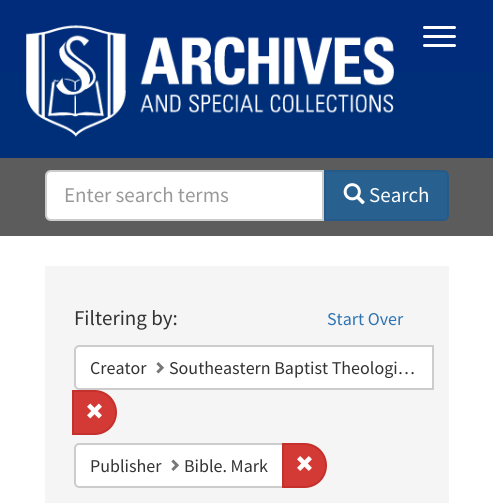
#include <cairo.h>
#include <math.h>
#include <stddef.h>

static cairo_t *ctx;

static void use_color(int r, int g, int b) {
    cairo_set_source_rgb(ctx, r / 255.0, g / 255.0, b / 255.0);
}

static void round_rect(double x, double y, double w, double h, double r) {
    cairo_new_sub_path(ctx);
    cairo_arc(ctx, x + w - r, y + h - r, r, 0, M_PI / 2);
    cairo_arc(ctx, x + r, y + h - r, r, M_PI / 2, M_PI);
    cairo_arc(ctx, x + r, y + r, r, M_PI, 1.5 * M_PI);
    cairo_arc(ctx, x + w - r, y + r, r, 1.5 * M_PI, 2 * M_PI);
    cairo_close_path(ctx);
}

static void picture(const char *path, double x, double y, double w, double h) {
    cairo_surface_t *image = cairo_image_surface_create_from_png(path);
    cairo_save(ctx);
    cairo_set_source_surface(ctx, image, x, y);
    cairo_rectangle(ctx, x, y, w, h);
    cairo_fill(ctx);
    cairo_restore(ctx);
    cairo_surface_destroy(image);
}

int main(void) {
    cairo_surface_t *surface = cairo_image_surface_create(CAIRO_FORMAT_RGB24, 493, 503);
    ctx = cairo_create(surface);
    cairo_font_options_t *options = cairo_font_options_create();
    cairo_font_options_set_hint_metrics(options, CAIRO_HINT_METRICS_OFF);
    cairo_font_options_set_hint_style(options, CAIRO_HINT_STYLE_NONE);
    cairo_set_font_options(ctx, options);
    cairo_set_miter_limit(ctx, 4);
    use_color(255, 255, 255);
    cairo_paint(ctx);
    use_color(0, 47, 122);
    cairo_rectangle(ctx, 0, 72, 493, 86);
    cairo_fill(ctx);
    use_color(0, 44, 123);
    cairo_rectangle(ctx, 0, 0, 493, 72);
    cairo_fill(ctx);
    use_color(255, 255, 255);
    round_rect(423, 26, 33, 3, 1.5);
    cairo_fill(ctx);
    round_rect(423, 35, 33, 3, 1.5);
    cairo_fill(ctx);
    round_rect(423, 44, 33, 3, 1.5);
    cairo_fill(ctx);
    picture("img1.png", 26, 25, 368, 112);
    use_color(92, 92, 92);
    cairo_rectangle(ctx, 0, 158, 493, 78);
    cairo_fill(ctx);
    use_color(255, 255, 255);
    cairo_new_path(ctx);
    cairo_move_to(ctx, 51, 171);
    cairo_line_to(ctx, 323, 171);
    cairo_line_to(ctx, 323, 220);
    cairo_line_to(ctx, 51, 220);
    cairo_curve_to(ctx, 48, 220, 46, 218, 46, 215);
    cairo_line_to(ctx, 46, 176);
    cairo_curve_to(ctx, 46, 173, 48, 171, 51, 171);
    cairo_close_path(ctx);
    cairo_fill_preserve(ctx);
    use_color(204, 204, 204);
    cairo_stroke(ctx);
    cairo_select_font_face(ctx, "Source Sans Pro", CAIRO_FONT_SLANT_NORMAL, CAIRO_FONT_WEIGHT_NORMAL);
    cairo_set_font_size(ctx, 21);
    use_color(153, 153, 153);
    cairo_move_to(ctx, 64, 202);
    cairo_show_text(ctx, "Enter search terms");
    use_color(40, 96, 144);
    cairo_new_path(ctx);
    cairo_move_to(ctx, 325, 171);
    cairo_line_to(ctx, 443, 171);
    cairo_curve_to(ctx, 446, 171, 448, 173, 448, 176);
    cairo_line_to(ctx, 448, 215);
    cairo_curve_to(ctx, 448, 218, 446, 220, 443, 220);
    cairo_line_to(ctx, 325, 220);
    cairo_close_path(ctx);
    cairo_fill_preserve(ctx);
    use_color(38, 91, 137);
    cairo_stroke(ctx);
    picture("img2.png", 343, 183, 22, 22);
    use_color(255, 255, 255);
    cairo_move_to(ctx, 369, 202);
    cairo_show_text(ctx, "Search");
    use_color(245, 245, 245);
    cairo_rectangle(ctx, 45, 266, 404, 237);
    cairo_fill(ctx);
    use_color(51, 51, 51);
    cairo_move_to(ctx, 74, 325);
    cairo_show_text(ctx, "Filtering by:");
    cairo_set_font_size(ctx, 18);
    use_color(46, 116, 178);
    cairo_move_to(ctx, 327, 325);
    cairo_show_text(ctx, "Start Over");
    use_color(255, 255, 255);
    cairo_new_path(ctx);
    cairo_move_to(ctx, 79, 346);
    cairo_line_to(ctx, 433, 346);
    cairo_line_to(ctx, 433, 389);
    cairo_line_to(ctx, 79, 389);
    cairo_curve_to(ctx, 77, 389, 75, 387, 75, 385);
    cairo_line_to(ctx, 75, 350);
    cairo_curve_to(ctx, 75, 348, 77, 346, 79, 346);
    cairo_close_path(ctx);
    cairo_fill_preserve(ctx);
    use_color(204, 204, 204);
    cairo_stroke(ctx);
    use_color(51, 51, 51);
    cairo_move_to(ctx, 90, 374);
    cairo_show_text(ctx, "Creator");
    picture("img3.png", 156, 362, 9, 12);
    cairo_move_to(ctx, 169, 374);
    cairo_show_text(ctx, "Southeastern Baptist Theologi…");
    use_color(211, 58, 53);
    cairo_new_path(ctx);
    cairo_move_to(ctx, 73, 391);
    cairo_line_to(ctx, 94.5, 391);
    cairo_curve_to(ctx, 106.5, 391, 116, 400.5, 116, 412.5);
    cairo_curve_to(ctx, 116, 424.5, 106.5, 434, 94.5, 434);
    cairo_line_to(ctx, 73, 434);
    cairo_close_path(ctx);
    cairo_fill_preserve(ctx);
    use_color(196, 48, 43);
    cairo_stroke(ctx);
    picture("img4.png", 87, 403, 15, 16);
    use_color(255, 255, 255);
    cairo_new_path(ctx);
    cairo_move_to(ctx, 79, 444);
    cairo_line_to(ctx, 283, 444);
    cairo_line_to(ctx, 283, 487);
    cairo_line_to(ctx, 79, 487);
    cairo_curve_to(ctx, 77, 487, 75, 485, 75, 483);
    cairo_line_to(ctx, 75, 448);
    cairo_curve_to(ctx, 75, 446, 77, 444, 79, 444);
    cairo_close_path(ctx);
    cairo_fill_preserve(ctx);
    use_color(204, 204, 204);
    cairo_stroke(ctx);
    use_color(51, 51, 51);
    cairo_move_to(ctx, 90, 472);
    cairo_show_text(ctx, "Publisher");
    picture("img5.png", 171, 459, 8, 12);
    cairo_move_to(ctx, 184, 472);
    cairo_show_text(ctx, "Bible. Mark");
    use_color(211, 58, 53);
    cairo_new_path(ctx);
    cairo_move_to(ctx, 283, 444);
    cairo_line_to(ctx, 304.5, 444);
    cairo_curve_to(ctx, 316.5, 444, 326, 453.5, 326, 465.5);
    cairo_curve_to(ctx, 326, 477.5, 316.5, 487, 304.5, 487);
    cairo_line_to(ctx, 283, 487);
    cairo_close_path(ctx);
    cairo_fill_preserve(ctx);
    use_color(196, 48, 43);
    cairo_stroke(ctx);
    picture("img6.png", 297, 456, 15, 15);
    cairo_surface_write_to_png(surface, "result.png");
    cairo_font_options_destroy(options);
    cairo_destroy(ctx);
    cairo_surface_destroy(surface);
    return 0;
}
